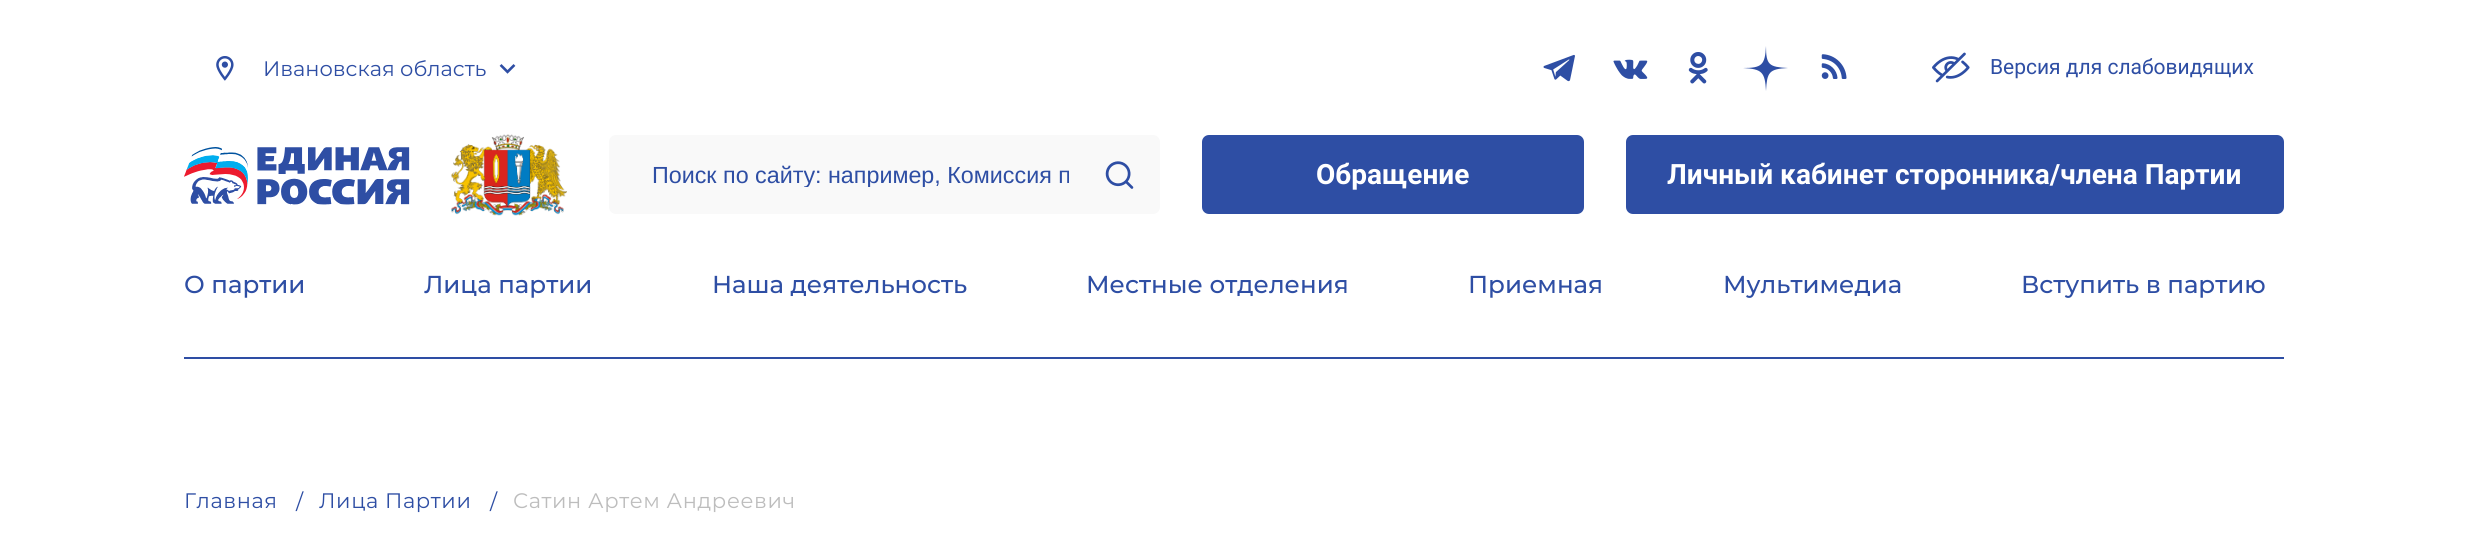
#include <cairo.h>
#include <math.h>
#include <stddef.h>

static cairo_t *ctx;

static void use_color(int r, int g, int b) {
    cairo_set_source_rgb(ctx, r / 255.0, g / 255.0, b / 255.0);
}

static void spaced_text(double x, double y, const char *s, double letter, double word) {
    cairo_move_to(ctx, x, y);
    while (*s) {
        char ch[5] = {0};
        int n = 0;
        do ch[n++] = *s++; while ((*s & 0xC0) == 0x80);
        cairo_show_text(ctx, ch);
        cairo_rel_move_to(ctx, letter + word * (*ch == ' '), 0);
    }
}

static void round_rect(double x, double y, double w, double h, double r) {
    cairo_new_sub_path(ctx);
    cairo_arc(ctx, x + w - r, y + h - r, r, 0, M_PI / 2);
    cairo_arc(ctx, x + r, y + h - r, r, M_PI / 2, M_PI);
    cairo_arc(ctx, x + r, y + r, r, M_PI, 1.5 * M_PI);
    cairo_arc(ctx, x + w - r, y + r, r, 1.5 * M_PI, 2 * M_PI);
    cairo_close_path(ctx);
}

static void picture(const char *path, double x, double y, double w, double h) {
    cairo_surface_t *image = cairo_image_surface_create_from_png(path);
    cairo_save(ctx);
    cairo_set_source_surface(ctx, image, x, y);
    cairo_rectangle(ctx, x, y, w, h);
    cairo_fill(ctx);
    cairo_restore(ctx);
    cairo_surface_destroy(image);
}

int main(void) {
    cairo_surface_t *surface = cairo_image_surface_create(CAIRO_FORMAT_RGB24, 2466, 544);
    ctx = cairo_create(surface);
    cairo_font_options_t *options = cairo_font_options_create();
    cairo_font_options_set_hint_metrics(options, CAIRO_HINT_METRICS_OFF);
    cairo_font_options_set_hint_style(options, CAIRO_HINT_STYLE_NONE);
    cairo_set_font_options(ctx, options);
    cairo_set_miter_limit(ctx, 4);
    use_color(255, 255, 255);
    cairo_paint(ctx);
    picture("img1.png", 216, 56, 18, 25);
    cairo_select_font_face(ctx, "Montserrat", CAIRO_FONT_SLANT_NORMAL, CAIRO_FONT_WEIGHT_NORMAL);
    cairo_set_font_size(ctx, 21);
    use_color(46, 78, 164);
    cairo_move_to(ctx, 263, 76);
    cairo_show_text(ctx, "Ивановская область");
    picture("img2.png", 499, 64, 17, 10);
    picture("img3.png", 1543, 54, 32, 28);
    picture("img4.png", 1613, 59, 35, 20);
    picture("img5.png", 1688, 52, 20, 32);
    cairo_new_path(ctx);
    cairo_move_to(ctx, 1788, 68);
    cairo_curve_to(ctx, 1769, 67, 1766, 65, 1766, 46);
    cairo_curve_to(ctx, 1765, 65, 1762, 68, 1743, 68);
    cairo_curve_to(ctx, 1762, 69, 1765, 72, 1766, 91);
    cairo_curve_to(ctx, 1767, 72, 1769, 69, 1788, 68);
    cairo_fill(ctx);
    picture("img6.png", 1821, 54, 26, 25);
    picture("img7.png", 1932, 52, 38, 31);
    cairo_select_font_face(ctx, "Roboto", CAIRO_FONT_SLANT_NORMAL, CAIRO_FONT_WEIGHT_NORMAL);
    cairo_move_to(ctx, 1990, 74);
    cairo_show_text(ctx, "Версия для слабовидящих");
    picture("img8.png", 184, 147, 226, 58);
    picture("img9.png", 451, 134, 116, 82);
    use_color(249, 249, 249);
    round_rect(609, 135, 551, 79, 7);
    cairo_fill(ctx);
    cairo_save(ctx);
    cairo_rectangle(ctx, 653, 161, 425, 26);
    cairo_clip(ctx);
    cairo_select_font_face(ctx, "Liberation Sans", CAIRO_FONT_SLANT_NORMAL, CAIRO_FONT_WEIGHT_NORMAL);
    cairo_set_font_size(ctx, 23.3);
    use_color(46, 78, 164);
    cairo_move_to(ctx, 652, 183);
    cairo_show_text(ctx, "Поиск по сайту: например, Комиссия п");
    cairo_restore(ctx);
    picture("img10.png", 1105, 161, 29, 28);
    use_color(46, 78, 164);
    round_rect(1202, 135, 382, 79, 7);
    cairo_fill(ctx);
    cairo_select_font_face(ctx, "Roboto", CAIRO_FONT_SLANT_NORMAL, CAIRO_FONT_WEIGHT_BOLD);
    cairo_set_font_size(ctx, 28);
    use_color(255, 255, 255);
    cairo_move_to(ctx, 1316, 184);
    cairo_show_text(ctx, "Обращение");
    use_color(46, 78, 164);
    round_rect(1626, 135, 658, 79, 7);
    cairo_fill(ctx);
    use_color(255, 255, 255);
    cairo_move_to(ctx, 1667, 184);
    cairo_show_text(ctx, "Личный кабинет сторонника/члена Партии");
    use_color(46, 78, 164);
    cairo_rectangle(ctx, 184, 357, 2100, 2);
    cairo_fill(ctx);
    cairo_select_font_face(ctx, "Montserrat Medium", CAIRO_FONT_SLANT_NORMAL, CAIRO_FONT_WEIGHT_NORMAL);
    cairo_set_font_size(ctx, 24.5);
    cairo_move_to(ctx, 184, 293);
    cairo_show_text(ctx, "О партии");
    cairo_move_to(ctx, 424, 293);
    cairo_show_text(ctx, "Лица партии");
    cairo_move_to(ctx, 712, 293);
    cairo_show_text(ctx, "Наша деятельность");
    cairo_move_to(ctx, 1086, 293);
    cairo_show_text(ctx, "Местные отделения");
    cairo_move_to(ctx, 1468, 293);
    cairo_show_text(ctx, "Приемная");
    cairo_move_to(ctx, 1723, 293);
    cairo_show_text(ctx, "Мультимедиа");
    cairo_move_to(ctx, 2021, 293);
    cairo_show_text(ctx, "Вступить в партию");
    cairo_select_font_face(ctx, "Montserrat", CAIRO_FONT_SLANT_NORMAL, CAIRO_FONT_WEIGHT_NORMAL);
    cairo_set_font_size(ctx, 21);
    spaced_text(184, 508, "Главная", 0.6, 0);
    spaced_text(296, 509, "/", 0.6, 0);
    spaced_text(319, 508, "Лица Партии", 0.6, 0);
    spaced_text(490, 509, "/", 0.6, 0);
    use_color(189, 189, 189);
    spaced_text(513, 508, "Сатин Артем Андреевич", 0.6, 0);
    cairo_surface_write_to_png(surface, "result.png");
    cairo_font_options_destroy(options);
    cairo_destroy(ctx);
    cairo_surface_destroy(surface);
    return 0;
}
